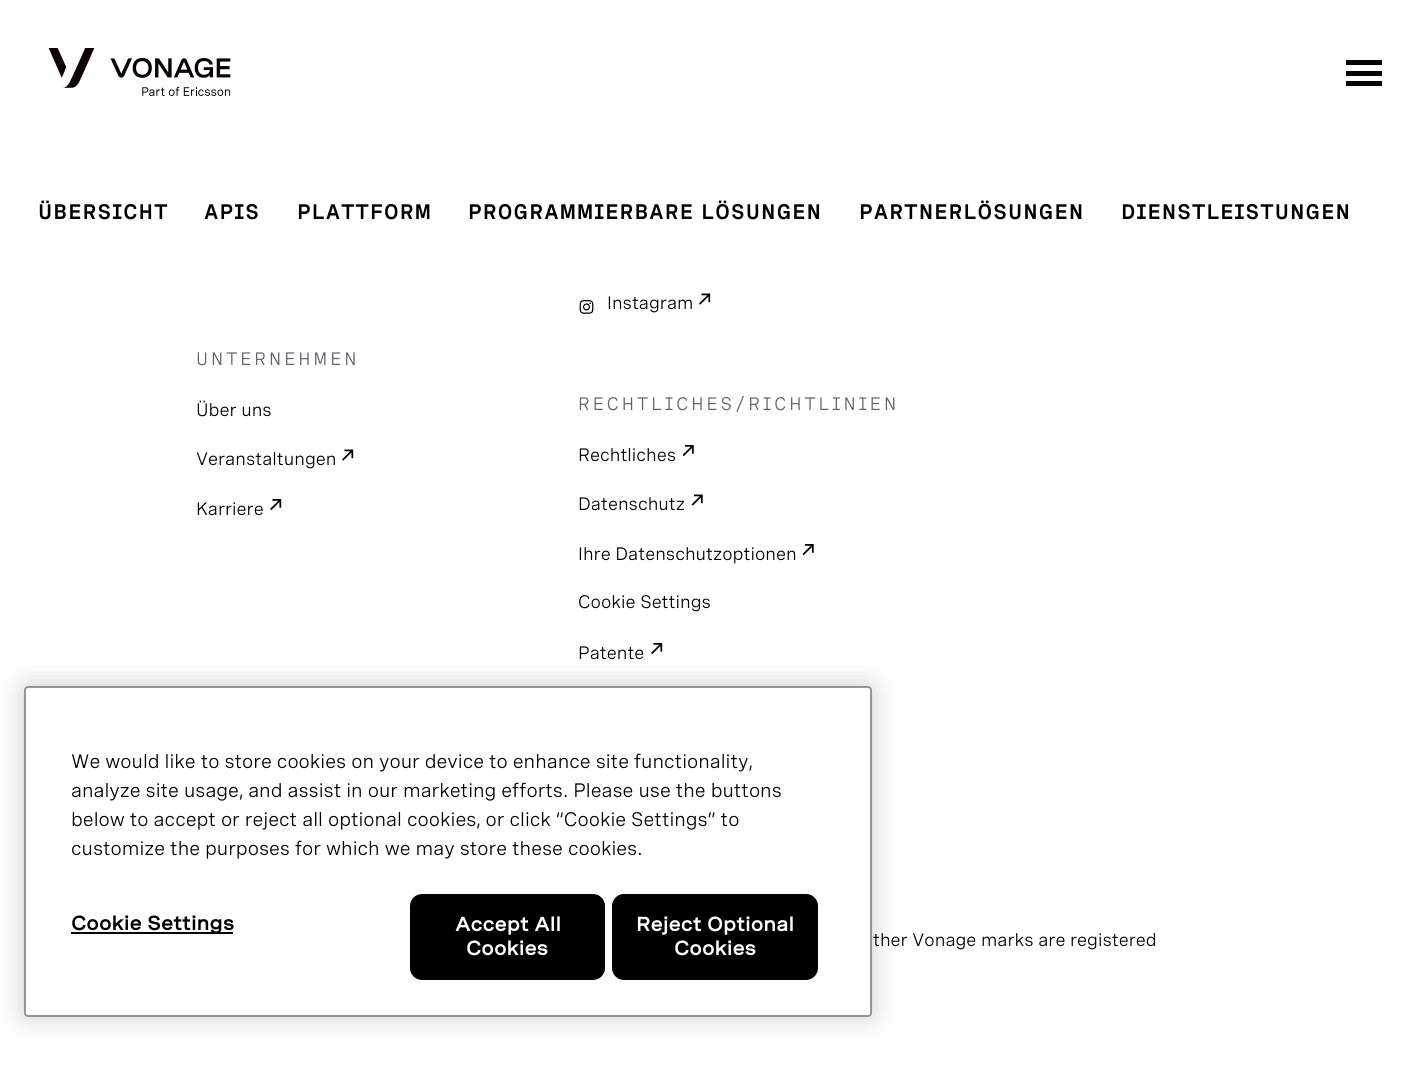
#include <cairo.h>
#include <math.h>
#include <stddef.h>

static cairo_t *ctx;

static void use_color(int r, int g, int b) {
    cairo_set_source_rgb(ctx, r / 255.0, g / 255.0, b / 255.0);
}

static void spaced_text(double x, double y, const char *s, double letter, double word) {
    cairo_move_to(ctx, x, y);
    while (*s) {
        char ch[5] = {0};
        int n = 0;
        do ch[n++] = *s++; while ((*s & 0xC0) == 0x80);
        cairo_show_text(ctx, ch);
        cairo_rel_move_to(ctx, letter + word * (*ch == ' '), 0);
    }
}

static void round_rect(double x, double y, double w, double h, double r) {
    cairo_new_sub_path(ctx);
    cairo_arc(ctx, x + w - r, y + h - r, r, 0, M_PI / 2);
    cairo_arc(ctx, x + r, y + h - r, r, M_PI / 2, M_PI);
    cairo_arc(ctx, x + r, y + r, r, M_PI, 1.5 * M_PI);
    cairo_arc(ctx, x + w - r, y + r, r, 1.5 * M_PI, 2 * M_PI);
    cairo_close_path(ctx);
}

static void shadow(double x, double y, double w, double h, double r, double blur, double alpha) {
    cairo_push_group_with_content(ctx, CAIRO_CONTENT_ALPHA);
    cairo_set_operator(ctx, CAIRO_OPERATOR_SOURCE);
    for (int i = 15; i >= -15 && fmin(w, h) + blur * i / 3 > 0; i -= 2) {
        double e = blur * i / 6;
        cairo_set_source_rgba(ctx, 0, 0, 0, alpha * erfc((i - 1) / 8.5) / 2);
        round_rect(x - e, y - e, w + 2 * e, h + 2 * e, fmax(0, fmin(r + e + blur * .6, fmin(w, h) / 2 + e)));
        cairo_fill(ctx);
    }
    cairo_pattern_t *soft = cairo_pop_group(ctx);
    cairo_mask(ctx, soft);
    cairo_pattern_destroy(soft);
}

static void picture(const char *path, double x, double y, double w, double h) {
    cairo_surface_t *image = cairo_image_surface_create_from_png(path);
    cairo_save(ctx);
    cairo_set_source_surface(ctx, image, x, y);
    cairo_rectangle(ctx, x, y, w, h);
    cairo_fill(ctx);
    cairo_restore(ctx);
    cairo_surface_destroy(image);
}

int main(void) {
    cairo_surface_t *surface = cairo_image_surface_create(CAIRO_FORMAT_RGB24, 1411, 1065);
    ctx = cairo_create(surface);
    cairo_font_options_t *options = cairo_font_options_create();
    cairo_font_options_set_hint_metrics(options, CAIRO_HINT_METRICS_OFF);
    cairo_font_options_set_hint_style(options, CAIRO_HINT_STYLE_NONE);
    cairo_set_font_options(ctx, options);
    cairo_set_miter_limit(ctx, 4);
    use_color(255, 255, 255);
    cairo_paint(ctx);
    picture("img1.png", 48, 48, 183, 48);
    use_color(0, 0, 0);
    cairo_rectangle(ctx, 1346, 60, 36, 5);
    cairo_fill(ctx);
    cairo_rectangle(ctx, 1346, 71, 36, 5);
    cairo_fill(ctx);
    cairo_rectangle(ctx, 1346, 81, 36, 5);
    cairo_fill(ctx);
    cairo_select_font_face(ctx, "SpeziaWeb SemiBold", CAIRO_FONT_SLANT_NORMAL, CAIRO_FONT_WEIGHT_NORMAL);
    cairo_set_font_size(ctx, 21);
    spaced_text(38, 219, "ÜBERSICHT", 1.1, 0);
    spaced_text(204, 219, "APIS", 1.1, 0);
    spaced_text(297, 219, "PLATTFORM", 1.1, 0);
    spaced_text(468, 219, "PROGRAMMIERBARE LÖSUNGEN", 1.1, 0);
    spaced_text(859, 219, "PARTNERLÖSUNGEN", 1.1, 0);
    spaced_text(1121, 219, "DIENSTLEISTUNGEN", 1.1, 0);
    cairo_select_font_face(ctx, "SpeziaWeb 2", CAIRO_FONT_SLANT_NORMAL, CAIRO_FONT_WEIGHT_NORMAL);
    cairo_set_font_size(ctx, 18);
    use_color(95, 97, 105);
    spaced_text(196, 365, "UNTERNEHMEN", 3, 0);
    cairo_select_font_face(ctx, "SpeziaWeb", CAIRO_FONT_SLANT_NORMAL, CAIRO_FONT_WEIGHT_NORMAL);
    use_color(0, 0, 0);
    cairo_move_to(ctx, 196, 416);
    cairo_show_text(ctx, "Über uns");
    cairo_move_to(ctx, 196, 465);
    cairo_show_text(ctx, "Veranstaltungen");
    picture("img2.png", 342, 449, 12, 12);
    cairo_move_to(ctx, 196, 515);
    cairo_show_text(ctx, "Karriere");
    picture("img3.png", 270, 499, 12, 12);
    picture("img4.png", 579, 300, 15, 14);
    cairo_move_to(ctx, 607, 309);
    cairo_show_text(ctx, "Instagram");
    picture("img2.png", 699, 293, 12, 12);
    cairo_select_font_face(ctx, "SpeziaWeb 2", CAIRO_FONT_SLANT_NORMAL, CAIRO_FONT_WEIGHT_NORMAL);
    use_color(95, 97, 105);
    spaced_text(578, 410, "RECHTLICHES/RICHTLINIEN", 3, 0);
    cairo_select_font_face(ctx, "SpeziaWeb", CAIRO_FONT_SLANT_NORMAL, CAIRO_FONT_WEIGHT_NORMAL);
    use_color(0, 0, 0);
    cairo_move_to(ctx, 578, 461);
    cairo_show_text(ctx, "Rechtliches");
    picture("img5.png", 682, 445, 12, 12);
    cairo_move_to(ctx, 578, 510);
    cairo_show_text(ctx, "Datenschutz");
    picture("img6.png", 691, 494, 12, 12);
    cairo_move_to(ctx, 578, 560);
    cairo_show_text(ctx, "Ihre Datenschutzoptionen");
    picture("img5.png", 802, 544, 12, 12);
    cairo_move_to(ctx, 578, 608);
    cairo_show_text(ctx, "Cookie Settings");
    cairo_move_to(ctx, 578, 659);
    cairo_show_text(ctx, "Patente");
    picture("img3.png", 651, 643, 12, 12);
    cairo_move_to(ctx, 873, 946);
    cairo_show_text(ctx, "ther Vonage marks are registered");
    use_color(0, 0, 0);
    shadow(24, 686, 848, 331, 4, 13.5, 0.2);
    use_color(255, 255, 255);
    round_rect(25, 687, 846, 329, 3);
    cairo_fill_preserve(ctx);
    use_color(148, 148, 148);
    cairo_stroke(ctx);
    cairo_set_font_size(ctx, 19.5);
    use_color(0, 0, 0);
    cairo_move_to(ctx, 71, 768);
    cairo_show_text(ctx, "We would like to store cookies on your device to enhance site functionality,");
    cairo_move_to(ctx, 71, 797);
    cairo_show_text(ctx, "analyze site usage, and assist in our marketing efforts. Please use the buttons");
    cairo_move_to(ctx, 71, 826);
    cairo_show_text(ctx, "below to accept or reject all optional cookies, or click “Cookie Settings” to");
    cairo_move_to(ctx, 71, 855);
    cairo_show_text(ctx, "customize the purposes for which we may store these cookies.");
    cairo_rectangle(ctx, 71, 932, 162, 2);
    cairo_fill(ctx);
    cairo_select_font_face(ctx, "SpeziaWeb", CAIRO_FONT_SLANT_NORMAL, CAIRO_FONT_WEIGHT_BOLD);
    spaced_text(71, 930, "Cookie Settings", 0.25, 0);
    round_rect(411, 895, 193, 84, 11);
    cairo_fill_preserve(ctx);
    cairo_stroke(ctx);
    use_color(255, 255, 255);
    spaced_text(455, 931, "Accept All", 0.25, 0);
    spaced_text(466, 955, "Cookies", 0.25, 0);
    use_color(0, 0, 0);
    round_rect(613, 895, 204, 84, 11);
    cairo_fill_preserve(ctx);
    cairo_stroke(ctx);
    use_color(255, 255, 255);
    spaced_text(636, 931, "Reject Optional", 0.25, 0);
    spaced_text(674, 955, "Cookies", 0.25, 0);
    cairo_surface_write_to_png(surface, "result.png");
    cairo_font_options_destroy(options);
    cairo_destroy(ctx);
    cairo_surface_destroy(surface);
    return 0;
}
